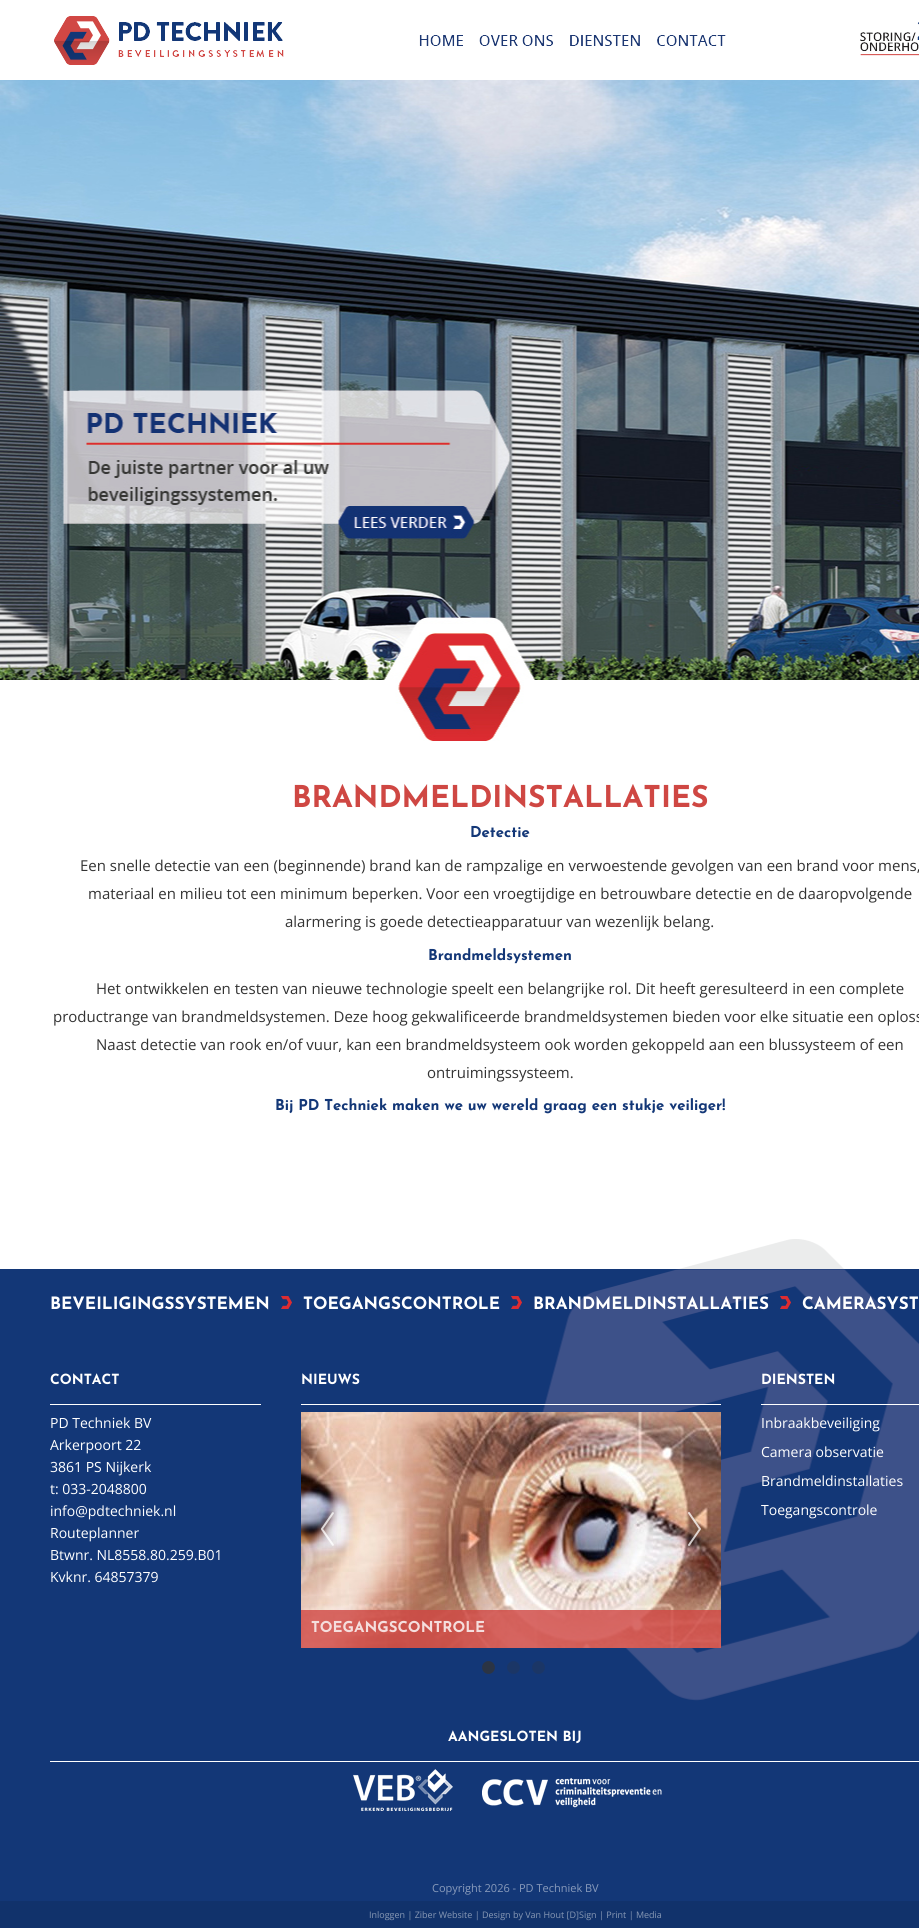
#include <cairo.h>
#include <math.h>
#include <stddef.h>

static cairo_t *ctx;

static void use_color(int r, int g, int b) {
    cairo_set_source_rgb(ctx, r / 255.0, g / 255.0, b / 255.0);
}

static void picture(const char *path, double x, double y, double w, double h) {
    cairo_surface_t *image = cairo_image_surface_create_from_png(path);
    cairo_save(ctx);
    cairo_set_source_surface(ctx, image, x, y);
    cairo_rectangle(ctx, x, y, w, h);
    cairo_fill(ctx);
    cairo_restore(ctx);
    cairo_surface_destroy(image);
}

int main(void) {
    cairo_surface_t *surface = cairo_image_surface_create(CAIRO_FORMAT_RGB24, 919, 1928);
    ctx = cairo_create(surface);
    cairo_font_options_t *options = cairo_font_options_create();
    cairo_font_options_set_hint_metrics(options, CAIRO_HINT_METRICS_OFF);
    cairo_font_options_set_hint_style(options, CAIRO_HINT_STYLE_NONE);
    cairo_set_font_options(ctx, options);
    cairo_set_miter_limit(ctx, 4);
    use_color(255, 255, 255);
    cairo_paint(ctx);
    picture("img1.png", 54, 16, 230, 49);
    picture("img2.png", 419, 35, 44, 11);
    picture("img3.png", 479, 35, 74, 11);
    picture("img4.png", 570, 35, 70, 11);
    picture("img5.png", 657, 35, 69, 11);
    picture("img6.png", 860, 22, 59, 34);
    picture("img7.png", 0, 80, 919, 661);
    cairo_select_font_face(ctx, "Josefin Sans", CAIRO_FONT_SLANT_NORMAL, CAIRO_FONT_WEIGHT_BOLD);
    cairo_set_font_size(ctx, 30);
    use_color(207, 71, 67);
    cairo_move_to(ctx, 292, 807);
    cairo_show_text(ctx, "BRANDMELDINSTALLATIES");
    cairo_set_font_size(ctx, 15);
    use_color(19, 55, 119);
    cairo_move_to(ctx, 470, 837);
    cairo_show_text(ctx, "Detectie");
    cairo_select_font_face(ctx, "Open Sans", CAIRO_FONT_SLANT_NORMAL, CAIRO_FONT_WEIGHT_NORMAL);
    use_color(51, 51, 51);
    cairo_move_to(ctx, 80, 871);
    cairo_show_text(ctx, "Een snelle detectie van een (beginnende) brand kan de rampzalige en verwoestende gevolgen van een brand voor mens,");
    cairo_move_to(ctx, 88, 899);
    cairo_show_text(ctx, "materiaal en milieu tot een minimum beperken. Voor een vroegtijdige en betrouwbare detectie en de daaropvolgende");
    cairo_move_to(ctx, 285, 927);
    cairo_show_text(ctx, "alarmering is goede detectieapparatuur van wezenlijk belang.");
    cairo_select_font_face(ctx, "Josefin Sans", CAIRO_FONT_SLANT_NORMAL, CAIRO_FONT_WEIGHT_BOLD);
    use_color(19, 55, 119);
    cairo_move_to(ctx, 428, 960);
    cairo_show_text(ctx, "Brandmeldsystemen");
    cairo_select_font_face(ctx, "Open Sans", CAIRO_FONT_SLANT_NORMAL, CAIRO_FONT_WEIGHT_NORMAL);
    use_color(51, 51, 51);
    cairo_move_to(ctx, 96, 994);
    cairo_show_text(ctx, "Het ontwikkelen en testen van nieuwe technologie speelt een belangrijke rol. Dit heeft geresulteerd in een complete");
    cairo_move_to(ctx, 53, 1022);
    cairo_show_text(ctx, "productrange van brandmeldsystemen. Deze hoog gekwalificeerde brandmeldsystemen bieden voor elke situatie een oploss");
    cairo_move_to(ctx, 96, 1050);
    cairo_show_text(ctx, "Naast detectie van rook en/of vuur, kan een brandmeldsysteem ook worden gekoppeld aan een blussysteem of een");
    cairo_move_to(ctx, 427, 1078);
    cairo_show_text(ctx, "ontruimingssysteem.");
    cairo_select_font_face(ctx, "Josefin Sans", CAIRO_FONT_SLANT_NORMAL, CAIRO_FONT_WEIGHT_BOLD);
    use_color(19, 55, 119);
    cairo_move_to(ctx, 275, 1110);
    cairo_show_text(ctx, "Bij PD Techniek maken we uw wereld graag een stukje veiliger!");
    picture("img8.png", 0, 1239, 919, 662);
    cairo_set_font_size(ctx, 17);
    use_color(255, 255, 255);
    cairo_move_to(ctx, 50, 1309);
    cairo_show_text(ctx, "BEVEILIGINGSSYSTEMEN");
    picture("img9.png", 281, 1296, 11, 13);
    cairo_move_to(ctx, 303, 1309);
    cairo_show_text(ctx, "TOEGANGSCONTROLE");
    picture("img9.png", 511, 1296, 11, 13);
    cairo_move_to(ctx, 533, 1309);
    cairo_show_text(ctx, "BRANDMELDINSTALLATIES");
    picture("img9.png", 780, 1296, 11, 13);
    cairo_move_to(ctx, 802, 1309);
    cairo_show_text(ctx, "CAMERASYST");
    cairo_set_font_size(ctx, 14);
    cairo_move_to(ctx, 50, 1384);
    cairo_show_text(ctx, "CONTACT");
    cairo_rectangle(ctx, 50, 1404, 211, 1);
    cairo_fill(ctx);
    cairo_select_font_face(ctx, "Open Sans", CAIRO_FONT_SLANT_NORMAL, CAIRO_FONT_WEIGHT_NORMAL);
    cairo_move_to(ctx, 50, 1428);
    cairo_show_text(ctx, "PD Techniek BV");
    cairo_move_to(ctx, 50, 1450);
    cairo_show_text(ctx, "Arkerpoort 22");
    cairo_move_to(ctx, 50, 1472);
    cairo_show_text(ctx, "3861 PS Nijkerk");
    cairo_move_to(ctx, 50, 1494);
    cairo_show_text(ctx, "t: 033-2048800");
    cairo_move_to(ctx, 50, 1516);
    cairo_show_text(ctx, "info@pdtechniek.nl");
    cairo_move_to(ctx, 50, 1538);
    cairo_show_text(ctx, "Routeplanner");
    cairo_move_to(ctx, 50, 1560);
    cairo_show_text(ctx, "Btwnr. NL8558.80.259.B01");
    cairo_move_to(ctx, 50, 1582);
    cairo_show_text(ctx, "Kvknr. 64857379");
    cairo_select_font_face(ctx, "Josefin Sans", CAIRO_FONT_SLANT_NORMAL, CAIRO_FONT_WEIGHT_BOLD);
    cairo_move_to(ctx, 301, 1384);
    cairo_show_text(ctx, "NIEUWS");
    cairo_rectangle(ctx, 301, 1404, 420, 1);
    cairo_fill(ctx);
    picture("img12.png", 301, 1412, 420, 236);
    picture("img10.png", 318, 1511, 19, 38);
    picture("img11.png", 685, 1512, 21, 36);
    cairo_set_source_rgba(ctx, 0.812, 0.278, 0.263, 0.8);
    cairo_rectangle(ctx, 301, 1610, 420, 38);
    cairo_fill(ctx);
    cairo_set_font_size(ctx, 15);
    use_color(245, 222, 221);
    cairo_move_to(ctx, 311, 1632);
    cairo_show_text(ctx, "TOEGANGSCONTROLE");
    picture("img13.png", 482, 1661, 13, 13);
    picture("img14.png", 507, 1661, 13, 13);
    picture("img14.png", 532, 1661, 13, 13);
    cairo_set_font_size(ctx, 14);
    use_color(255, 255, 255);
    cairo_move_to(ctx, 761, 1384);
    cairo_show_text(ctx, "DIENSTEN");
    cairo_rectangle(ctx, 761, 1404, 158, 1);
    cairo_fill(ctx);
    cairo_select_font_face(ctx, "Open Sans", CAIRO_FONT_SLANT_NORMAL, CAIRO_FONT_WEIGHT_NORMAL);
    cairo_move_to(ctx, 761, 1428);
    cairo_show_text(ctx, "Inbraakbeveiliging");
    cairo_move_to(ctx, 761, 1457);
    cairo_show_text(ctx, "Camera observatie");
    cairo_move_to(ctx, 761, 1486);
    cairo_show_text(ctx, "Brandmeldinstallaties");
    cairo_move_to(ctx, 761, 1515);
    cairo_show_text(ctx, "Toegangscontrole");
    cairo_select_font_face(ctx, "Josefin Sans", CAIRO_FONT_SLANT_NORMAL, CAIRO_FONT_WEIGHT_BOLD);
    cairo_move_to(ctx, 448, 1741);
    cairo_show_text(ctx, "AANGESLOTEN BIJ");
    cairo_rectangle(ctx, 50, 1761, 869, 1);
    cairo_fill(ctx);
    picture("img15.png", 353, 1769, 100, 42);
    picture("img16.png", 482, 1778, 180, 30);
    cairo_select_font_face(ctx, "Open Sans", CAIRO_FONT_SLANT_NORMAL, CAIRO_FONT_WEIGHT_NORMAL);
    cairo_set_font_size(ctx, 11);
    use_color(137, 155, 187);
    cairo_move_to(ctx, 432, 1892);
    cairo_show_text(ctx, "Copyright 2026 - PD Techniek BV");
    use_color(17, 50, 107);
    cairo_rectangle(ctx, 0, 1901, 919, 27);
    cairo_fill(ctx);
    cairo_set_font_size(ctx, 9);
    use_color(136, 153, 181);
    cairo_move_to(ctx, 369, 1918);
    cairo_show_text(ctx, "Inloggen | Ziber Website | Design by Van Hout [D]Sign | Print | Media");
    cairo_surface_write_to_png(surface, "result.png");
    cairo_font_options_destroy(options);
    cairo_destroy(ctx);
    cairo_surface_destroy(surface);
    return 0;
}
